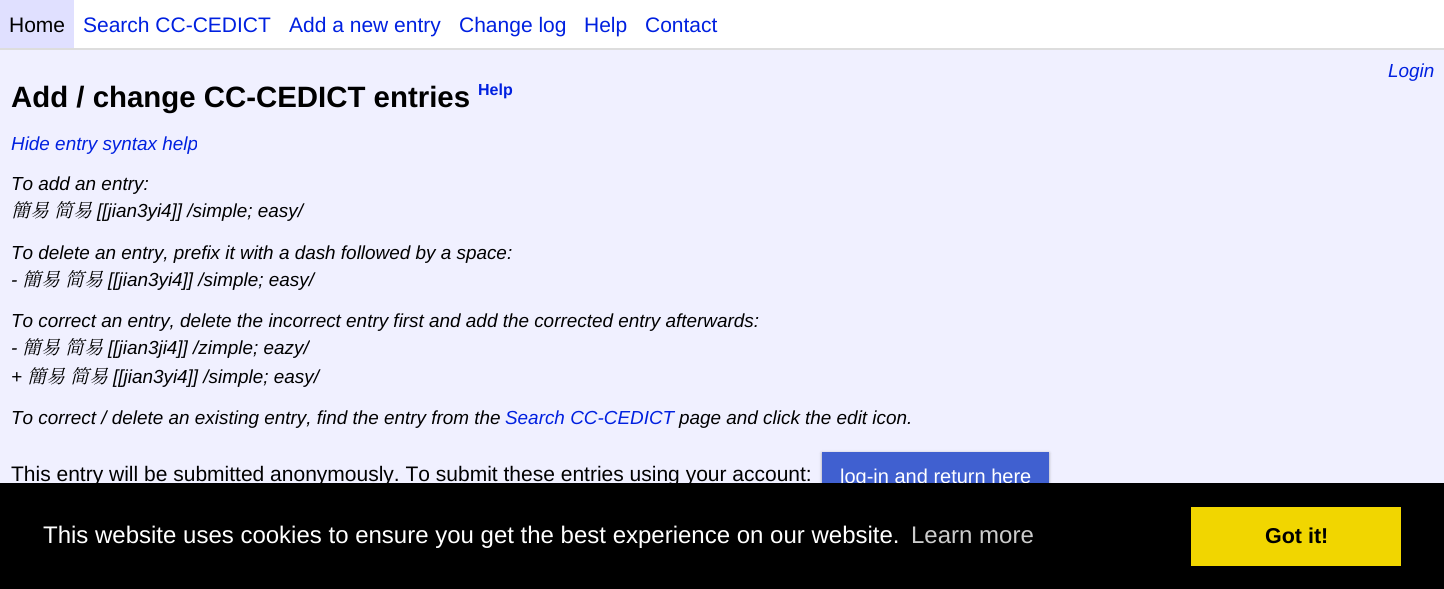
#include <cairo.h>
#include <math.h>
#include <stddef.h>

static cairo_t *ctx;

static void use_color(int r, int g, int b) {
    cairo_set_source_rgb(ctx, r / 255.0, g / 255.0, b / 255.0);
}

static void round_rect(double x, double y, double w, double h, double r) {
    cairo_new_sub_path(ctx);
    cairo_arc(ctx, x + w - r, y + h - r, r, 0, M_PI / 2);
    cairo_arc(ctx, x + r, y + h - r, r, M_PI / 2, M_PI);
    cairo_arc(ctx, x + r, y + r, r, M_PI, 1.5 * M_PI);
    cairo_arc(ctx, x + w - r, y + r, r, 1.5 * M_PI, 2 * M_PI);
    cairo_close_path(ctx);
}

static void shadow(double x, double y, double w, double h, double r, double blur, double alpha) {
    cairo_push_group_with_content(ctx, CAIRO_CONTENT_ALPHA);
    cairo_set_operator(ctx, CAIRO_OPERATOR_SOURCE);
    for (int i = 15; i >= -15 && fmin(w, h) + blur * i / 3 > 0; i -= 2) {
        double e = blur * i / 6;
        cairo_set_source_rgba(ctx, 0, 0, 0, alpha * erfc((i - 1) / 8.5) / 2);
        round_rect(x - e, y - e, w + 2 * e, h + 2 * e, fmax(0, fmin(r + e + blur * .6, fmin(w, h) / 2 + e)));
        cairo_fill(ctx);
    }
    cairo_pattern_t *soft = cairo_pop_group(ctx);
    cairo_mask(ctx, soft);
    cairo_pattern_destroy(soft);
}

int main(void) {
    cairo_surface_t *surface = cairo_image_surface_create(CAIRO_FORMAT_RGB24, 1444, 589);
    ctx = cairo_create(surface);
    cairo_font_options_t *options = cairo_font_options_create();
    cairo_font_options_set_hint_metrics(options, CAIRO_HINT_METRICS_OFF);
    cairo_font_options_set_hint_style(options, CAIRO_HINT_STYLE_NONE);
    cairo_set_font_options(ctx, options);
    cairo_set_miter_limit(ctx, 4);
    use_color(240, 240, 255);
    cairo_paint(ctx);
    use_color(255, 255, 255);
    cairo_rectangle(ctx, 74, 0, 1370, 48);
    cairo_fill(ctx);
    use_color(221, 221, 221);
    cairo_rectangle(ctx, 0, 48, 1444, 2);
    cairo_fill(ctx);
    use_color(224, 224, 255);
    cairo_rectangle(ctx, 0, 0, 74, 48);
    cairo_fill(ctx);
    cairo_select_font_face(ctx, "Liberation Sans", CAIRO_FONT_SLANT_NORMAL, CAIRO_FONT_WEIGHT_NORMAL);
    cairo_set_font_size(ctx, 21);
    use_color(0, 0, 0);
    cairo_move_to(ctx, 9, 32);
    cairo_show_text(ctx, "Home");
    use_color(0, 32, 224);
    cairo_move_to(ctx, 83, 32);
    cairo_show_text(ctx, "Search CC-CEDICT");
    cairo_move_to(ctx, 289, 32);
    cairo_show_text(ctx, "Add a new entry");
    cairo_move_to(ctx, 459, 32);
    cairo_show_text(ctx, "Change log");
    cairo_move_to(ctx, 584, 32);
    cairo_show_text(ctx, "Help");
    cairo_move_to(ctx, 645, 32);
    cairo_show_text(ctx, "Contact");
    cairo_select_font_face(ctx, "Liberation Sans", CAIRO_FONT_SLANT_ITALIC, CAIRO_FONT_WEIGHT_NORMAL);
    cairo_set_font_size(ctx, 18.9);
    cairo_move_to(ctx, 1388, 77);
    cairo_show_text(ctx, "Login");
    cairo_select_font_face(ctx, "Liberation Sans", CAIRO_FONT_SLANT_NORMAL, CAIRO_FONT_WEIGHT_BOLD);
    cairo_set_font_size(ctx, 29.4);
    use_color(0, 0, 0);
    cairo_move_to(ctx, 11, 107);
    cairo_show_text(ctx, "Add / change CC-CEDICT entries");
    cairo_set_font_size(ctx, 16);
    use_color(0, 32, 224);
    cairo_move_to(ctx, 478, 95);
    cairo_show_text(ctx, "Help");
    cairo_select_font_face(ctx, "Liberation Sans", CAIRO_FONT_SLANT_ITALIC, CAIRO_FONT_WEIGHT_NORMAL);
    cairo_set_font_size(ctx, 18.9);
    cairo_move_to(ctx, 11, 150);
    cairo_show_text(ctx, "Hide entry syntax help");
    use_color(0, 0, 0);
    cairo_move_to(ctx, 11, 190);
    cairo_show_text(ctx, "To add an entry:");
    cairo_select_font_face(ctx, "Noto Serif CJK SC", CAIRO_FONT_SLANT_ITALIC, CAIRO_FONT_WEIGHT_NORMAL);
    cairo_move_to(ctx, 11, 217);
    cairo_show_text(ctx, "簡易");
    cairo_move_to(ctx, 54, 217);
    cairo_show_text(ctx, "简易");
    cairo_select_font_face(ctx, "Liberation Sans", CAIRO_FONT_SLANT_ITALIC, CAIRO_FONT_WEIGHT_NORMAL);
    cairo_move_to(ctx, 97, 217);
    cairo_show_text(ctx, "[[jian3yi4]] /simple; easy/");
    cairo_move_to(ctx, 11, 259);
    cairo_show_text(ctx, "To delete an entry, prefix it with a dash followed by a space:");
    cairo_move_to(ctx, 11, 286);
    cairo_show_text(ctx, "-");
    cairo_select_font_face(ctx, "Noto Serif CJK SC", CAIRO_FONT_SLANT_ITALIC, CAIRO_FONT_WEIGHT_NORMAL);
    cairo_move_to(ctx, 22, 286);
    cairo_show_text(ctx, "簡易");
    cairo_move_to(ctx, 65, 286);
    cairo_show_text(ctx, "简易");
    cairo_select_font_face(ctx, "Liberation Sans", CAIRO_FONT_SLANT_ITALIC, CAIRO_FONT_WEIGHT_NORMAL);
    cairo_move_to(ctx, 108, 286);
    cairo_show_text(ctx, "[[jian3yi4]] /simple; easy/");
    cairo_move_to(ctx, 11, 327);
    cairo_show_text(ctx, "To correct an entry, delete the incorrect entry first and add the corrected entry afterwards:");
    cairo_move_to(ctx, 11, 354);
    cairo_show_text(ctx, "-");
    cairo_select_font_face(ctx, "Noto Serif CJK SC", CAIRO_FONT_SLANT_ITALIC, CAIRO_FONT_WEIGHT_NORMAL);
    cairo_move_to(ctx, 22, 354);
    cairo_show_text(ctx, "簡易");
    cairo_move_to(ctx, 65, 354);
    cairo_show_text(ctx, "简易");
    cairo_select_font_face(ctx, "Liberation Sans", CAIRO_FONT_SLANT_ITALIC, CAIRO_FONT_WEIGHT_NORMAL);
    cairo_move_to(ctx, 108, 354);
    cairo_show_text(ctx, "[[jian3ji4]] /zimple; eazy/");
    cairo_move_to(ctx, 11, 383);
    cairo_show_text(ctx, "+");
    cairo_select_font_face(ctx, "Noto Serif CJK SC", CAIRO_FONT_SLANT_ITALIC, CAIRO_FONT_WEIGHT_NORMAL);
    cairo_move_to(ctx, 27, 383);
    cairo_show_text(ctx, "簡易");
    cairo_move_to(ctx, 70, 383);
    cairo_show_text(ctx, "简易");
    cairo_select_font_face(ctx, "Liberation Sans", CAIRO_FONT_SLANT_ITALIC, CAIRO_FONT_WEIGHT_NORMAL);
    cairo_move_to(ctx, 113, 383);
    cairo_show_text(ctx, "[[jian3yi4]] /simple; easy/");
    cairo_move_to(ctx, 11, 424);
    cairo_show_text(ctx, "To correct / delete an existing entry, find the entry from the");
    use_color(0, 32, 224);
    cairo_move_to(ctx, 505, 424);
    cairo_show_text(ctx, "Search CC-CEDICT");
    use_color(0, 0, 0);
    cairo_move_to(ctx, 679, 424);
    cairo_show_text(ctx, "page and click the edit icon.");
    cairo_select_font_face(ctx, "Liberation Sans", CAIRO_FONT_SLANT_NORMAL, CAIRO_FONT_WEIGHT_NORMAL);
    cairo_set_font_size(ctx, 21);
    cairo_move_to(ctx, 11, 481);
    cairo_show_text(ctx, "This entry will be submitted anonymously. To submit these entries using your account:");
    use_color(0, 0, 0);
    shadow(822, 453, 227, 48, 0, 1.5, 0.24);
    shadow(822, 453, 227, 48, 0, 2, 0.12);
    use_color(64, 96, 208);
    cairo_rectangle(ctx, 822, 452, 227, 31);
    cairo_fill(ctx);
    cairo_set_font_size(ctx, 20);
    use_color(255, 255, 255);
    cairo_move_to(ctx, 840, 483);
    cairo_show_text(ctx, "log-in and return here");
    use_color(0, 0, 0);
    cairo_rectangle(ctx, 0, 483, 1444, 106);
    cairo_fill(ctx);
    cairo_set_font_size(ctx, 24);
    use_color(255, 255, 255);
    cairo_move_to(ctx, 43, 543);
    cairo_show_text(ctx, "This website uses cookies to ensure you get the best experience on our website.");
    use_color(204, 204, 204);
    cairo_move_to(ctx, 911, 543);
    cairo_show_text(ctx, "Learn more");
    use_color(241, 214, 0);
    cairo_rectangle(ctx, 1191, 507, 210, 59);
    cairo_fill(ctx);
    cairo_select_font_face(ctx, "Liberation Sans", CAIRO_FONT_SLANT_NORMAL, CAIRO_FONT_WEIGHT_BOLD);
    cairo_set_font_size(ctx, 21.5);
    use_color(0, 0, 0);
    cairo_move_to(ctx, 1265, 543);
    cairo_show_text(ctx, "Got it!");
    cairo_surface_write_to_png(surface, "result.png");
    cairo_font_options_destroy(options);
    cairo_destroy(ctx);
    cairo_surface_destroy(surface);
    return 0;
}
